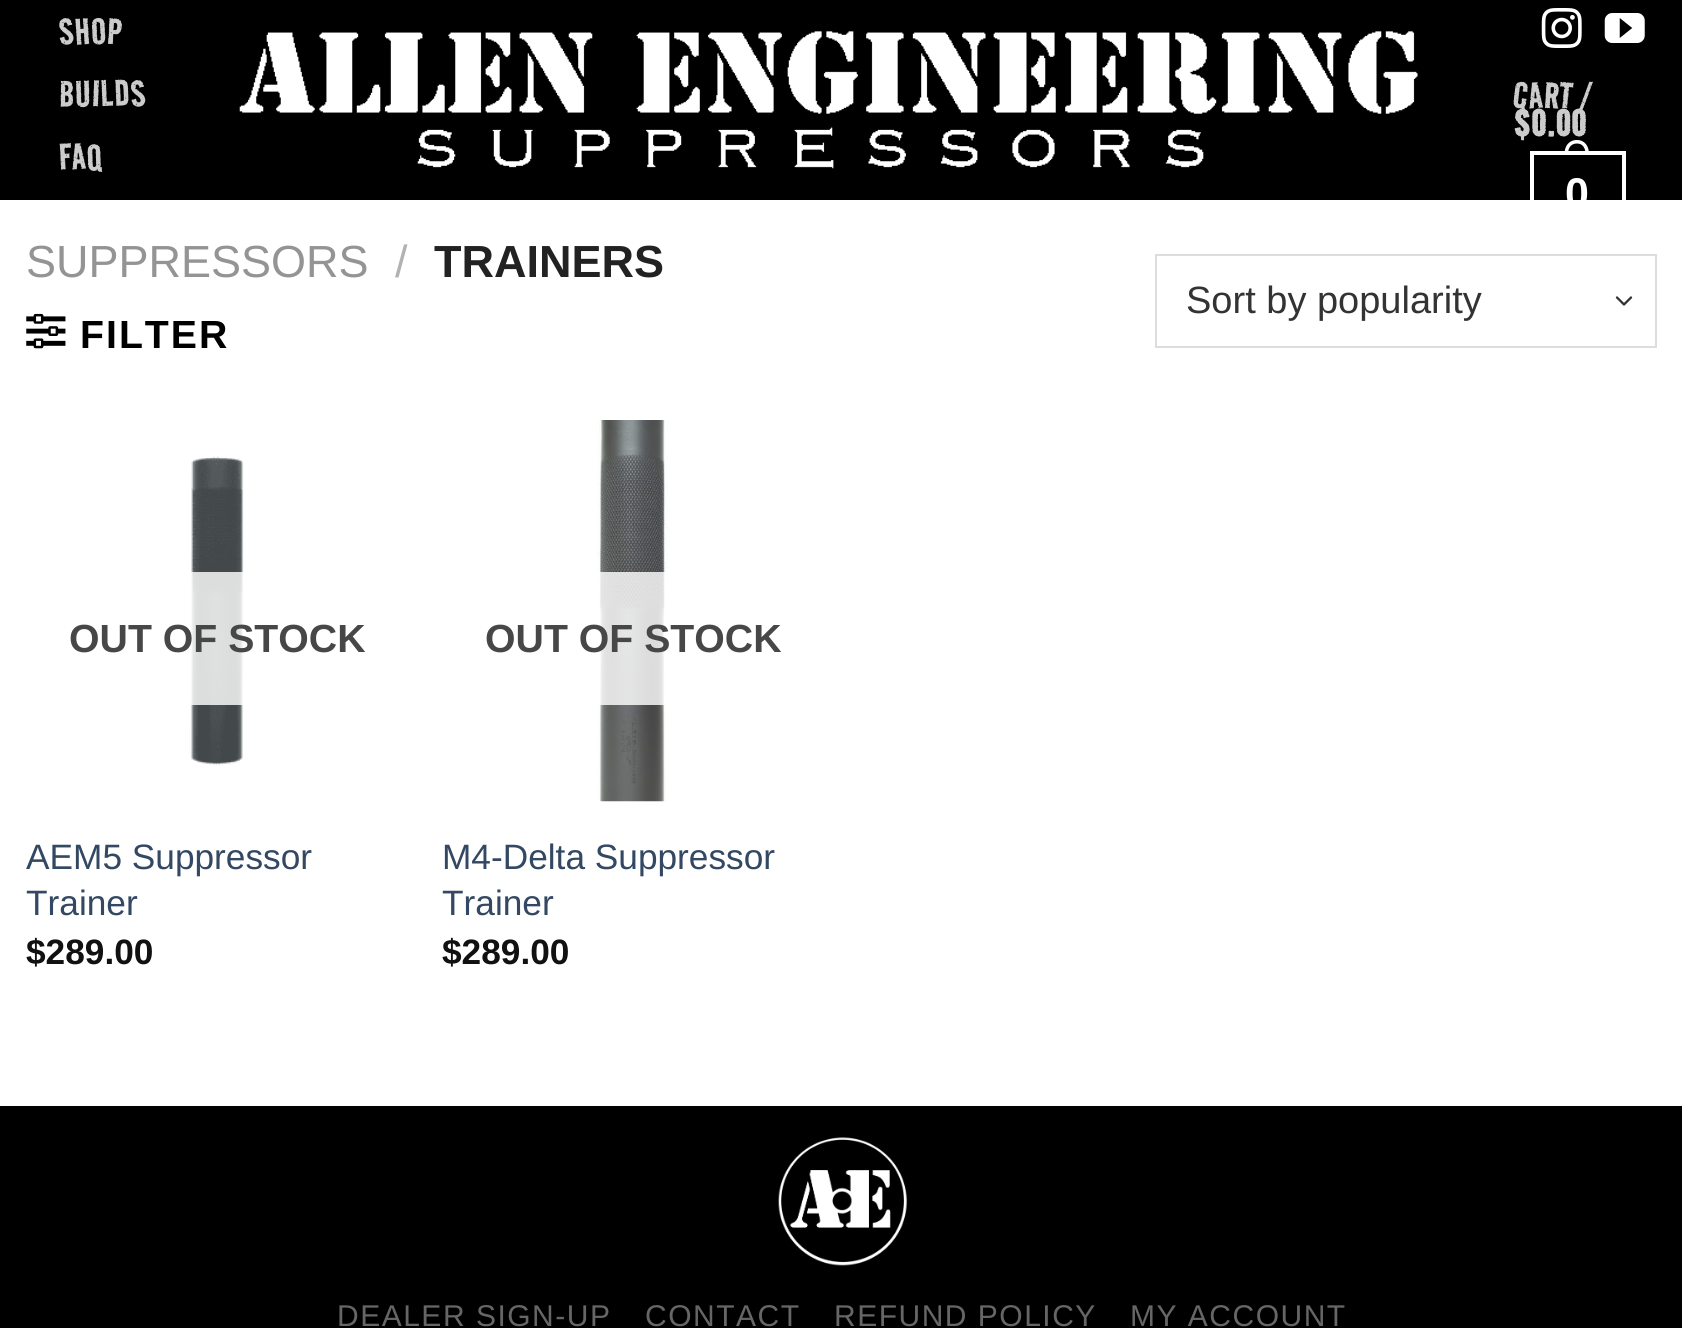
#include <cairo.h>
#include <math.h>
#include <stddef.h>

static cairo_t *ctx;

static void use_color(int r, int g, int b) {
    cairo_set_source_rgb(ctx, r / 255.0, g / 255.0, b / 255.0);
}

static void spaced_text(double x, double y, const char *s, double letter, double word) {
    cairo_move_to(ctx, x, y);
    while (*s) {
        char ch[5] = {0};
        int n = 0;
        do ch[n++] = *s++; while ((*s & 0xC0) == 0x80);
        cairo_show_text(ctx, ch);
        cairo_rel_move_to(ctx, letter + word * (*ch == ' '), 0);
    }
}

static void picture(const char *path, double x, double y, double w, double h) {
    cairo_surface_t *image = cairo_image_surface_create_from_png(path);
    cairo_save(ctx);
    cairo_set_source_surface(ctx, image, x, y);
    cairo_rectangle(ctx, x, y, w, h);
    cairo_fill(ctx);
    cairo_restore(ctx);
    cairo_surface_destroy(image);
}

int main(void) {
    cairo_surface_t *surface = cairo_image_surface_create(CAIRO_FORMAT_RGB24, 1682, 1328);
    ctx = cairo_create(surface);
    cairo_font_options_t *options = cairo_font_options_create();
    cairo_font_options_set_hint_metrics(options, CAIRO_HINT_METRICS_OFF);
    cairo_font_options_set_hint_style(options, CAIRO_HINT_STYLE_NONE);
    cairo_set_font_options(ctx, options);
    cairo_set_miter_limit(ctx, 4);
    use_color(255, 255, 255);
    cairo_paint(ctx);
    use_color(0, 0, 0);
    cairo_rectangle(ctx, 0, 0, 1682, 200);
    cairo_fill(ctx);
    cairo_select_font_face(ctx, "Road Rage", CAIRO_FONT_SLANT_NORMAL, CAIRO_FONT_WEIGHT_NORMAL);
    cairo_set_font_size(ctx, 43);
    use_color(204, 204, 204);
    spaced_text(59, 44, "SHOP", 1, 0);
    spaced_text(59, 106, "BUILDS", 1, 0);
    spaced_text(59, 169, "FAQ", 1, 0);
    picture("img1.png", 239, 31, 1179, 138);
    picture("img2.png", 1541, 8, 41, 40);
    picture("img3.png", 1604, 13, 41, 30);
    spaced_text(1513, 108, "CART /", 1, 0);
    cairo_select_font_face(ctx, "Road Rage", CAIRO_FONT_SLANT_NORMAL, CAIRO_FONT_WEIGHT_BOLD);
    spaced_text(1513, 136, "$", 1, 0);
    spaced_text(1531, 136, "0.00", 1, 0);
    cairo_rectangle(ctx, 1532, 153, 92, 90);
    use_color(255, 255, 255);
    cairo_set_line_width(ctx, 4);
    cairo_stroke(ctx);
    cairo_set_fill_rule(ctx, CAIRO_FILL_RULE_EVEN_ODD);
    cairo_new_path(ctx);
    cairo_move_to(ctx, 1577, 140);
    cairo_curve_to(ctx, 1585, 140, 1589, 146.5, 1589, 154);
    cairo_line_to(ctx, 1564.5, 154);
    cairo_curve_to(ctx, 1564.5, 146.5, 1568.5, 140, 1577, 140);
    cairo_close_path(ctx);
    cairo_move_to(ctx, 1577, 143.5);
    cairo_curve_to(ctx, 1583, 143.5, 1585.5, 148.5, 1585.5, 154);
    cairo_line_to(ctx, 1568, 154);
    cairo_curve_to(ctx, 1568, 148.5, 1570.5, 143.5, 1577, 143.5);
    cairo_close_path(ctx);
    cairo_fill(ctx);
    cairo_select_font_face(ctx, "Liberation Sans", CAIRO_FONT_SLANT_NORMAL, CAIRO_FONT_WEIGHT_BOLD);
    spaced_text(1565, 208, "0", 1, 0);
    cairo_select_font_face(ctx, "Liberation Sans", CAIRO_FONT_SLANT_NORMAL, CAIRO_FONT_WEIGHT_NORMAL);
    cairo_set_font_size(ctx, 45);
    use_color(148, 148, 148);
    cairo_move_to(ctx, 26, 277);
    cairo_show_text(ctx, "SUPPRESSORS");
    use_color(178, 178, 178);
    cairo_move_to(ctx, 395, 277);
    cairo_show_text(ctx, "/");
    cairo_select_font_face(ctx, "Liberation Sans", CAIRO_FONT_SLANT_NORMAL, CAIRO_FONT_WEIGHT_BOLD);
    use_color(34, 34, 34);
    cairo_move_to(ctx, 434, 277);
    cairo_show_text(ctx, "TRAINERS");
    picture("img4.png", 26, 313, 40, 36);
    cairo_set_font_size(ctx, 39.25);
    use_color(0, 0, 0);
    spaced_text(80, 348, "FILTER", 2, 0);
    cairo_new_path(ctx);
    cairo_move_to(ctx, 1617, 297.5);
    cairo_line_to(ctx, 1624, 304.5);
    cairo_line_to(ctx, 1631, 297.5);
    use_color(51, 51, 51);
    cairo_set_line_width(ctx, 2.3);
    cairo_set_line_cap(ctx, CAIRO_LINE_CAP_ROUND);
    cairo_set_line_join(ctx, CAIRO_LINE_JOIN_ROUND);
    cairo_stroke(ctx);
    cairo_rectangle(ctx, 1156, 255, 500, 92);
    use_color(221, 221, 221);
    cairo_set_line_width(ctx, 2);
    cairo_set_line_cap(ctx, CAIRO_LINE_CAP_BUTT);
    cairo_set_line_join(ctx, CAIRO_LINE_JOIN_MITER);
    cairo_stroke(ctx);
    cairo_select_font_face(ctx, "Liberation Sans", CAIRO_FONT_SLANT_NORMAL, CAIRO_FONT_WEIGHT_NORMAL);
    cairo_set_font_size(ctx, 38);
    use_color(51, 51, 51);
    cairo_move_to(ctx, 1186, 313);
    cairo_show_text(ctx, "Sort by popularity");
    picture("img5.png", 189, 456, 55, 310);
    cairo_set_source_rgba(ctx, 1, 1, 1, 0.81);
    cairo_rectangle(ctx, 190, 572, 54, 133);
    cairo_fill(ctx);
    cairo_select_font_face(ctx, "Liberation Sans", CAIRO_FONT_SLANT_NORMAL, CAIRO_FONT_WEIGHT_BOLD);
    cairo_set_font_size(ctx, 39.25);
    use_color(71, 71, 71);
    cairo_move_to(ctx, 69, 652);
    cairo_show_text(ctx, "OUT OF STOCK");
    cairo_select_font_face(ctx, "Liberation Sans", CAIRO_FONT_SLANT_NORMAL, CAIRO_FONT_WEIGHT_NORMAL);
    cairo_set_font_size(ctx, 35.25);
    use_color(51, 72, 98);
    cairo_move_to(ctx, 26, 869);
    cairo_show_text(ctx, "AEM5 Suppressor");
    cairo_move_to(ctx, 26, 915);
    cairo_show_text(ctx, "Trainer");
    cairo_select_font_face(ctx, "Liberation Sans", CAIRO_FONT_SLANT_NORMAL, CAIRO_FONT_WEIGHT_BOLD);
    use_color(17, 17, 17);
    cairo_move_to(ctx, 26, 964);
    cairo_show_text(ctx, "$289.00");
    picture("img6.png", 597, 420, 71, 382);
    cairo_set_source_rgba(ctx, 1, 1, 1, 0.81);
    cairo_rectangle(ctx, 597, 572, 71, 133);
    cairo_fill(ctx);
    cairo_set_font_size(ctx, 39.25);
    use_color(71, 71, 71);
    cairo_move_to(ctx, 485, 652);
    cairo_show_text(ctx, "OUT OF STOCK");
    cairo_select_font_face(ctx, "Liberation Sans", CAIRO_FONT_SLANT_NORMAL, CAIRO_FONT_WEIGHT_NORMAL);
    cairo_set_font_size(ctx, 35.25);
    use_color(51, 72, 98);
    cairo_move_to(ctx, 442, 869);
    cairo_show_text(ctx, "M4-Delta Suppressor");
    cairo_move_to(ctx, 442, 915);
    cairo_show_text(ctx, "Trainer");
    cairo_select_font_face(ctx, "Liberation Sans", CAIRO_FONT_SLANT_NORMAL, CAIRO_FONT_WEIGHT_BOLD);
    use_color(17, 17, 17);
    cairo_move_to(ctx, 442, 964);
    cairo_show_text(ctx, "$289.00");
    use_color(0, 0, 0);
    cairo_rectangle(ctx, 0, 1106, 1682, 222);
    cairo_fill(ctx);
    picture("img7.png", 778, 1137, 130, 129);
    cairo_select_font_face(ctx, "Liberation Sans", CAIRO_FONT_SLANT_NORMAL, CAIRO_FONT_WEIGHT_NORMAL);
    cairo_set_font_size(ctx, 30);
    use_color(102, 102, 102);
    spaced_text(337, 1326, "DEALER SIGN-UP", 1.5, 0);
    spaced_text(645, 1326, "CONTACT", 1.5, 0);
    spaced_text(834, 1326, "REFUND POLICY", 1.5, 0);
    spaced_text(1130, 1326, "MY ACCOUNT", 1.5, 0);
    cairo_surface_write_to_png(surface, "result.png");
    cairo_font_options_destroy(options);
    cairo_destroy(ctx);
    cairo_surface_destroy(surface);
    return 0;
}
